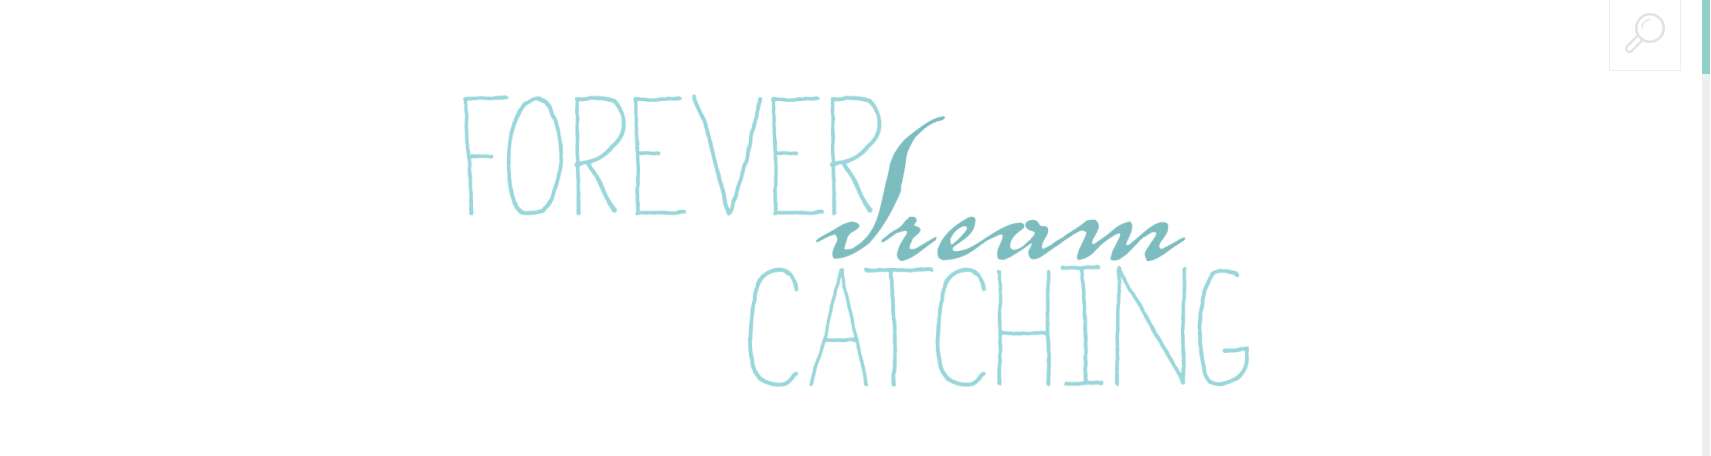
#include <cairo.h>
#include <math.h>
#include <stddef.h>

static cairo_t *ctx;

static void use_color(int r, int g, int b) {
    cairo_set_source_rgb(ctx, r / 255.0, g / 255.0, b / 255.0);
}

static void picture(const char *path, double x, double y, double w, double h) {
    cairo_surface_t *image = cairo_image_surface_create_from_png(path);
    cairo_save(ctx);
    cairo_set_source_surface(ctx, image, x, y);
    cairo_rectangle(ctx, x, y, w, h);
    cairo_fill(ctx);
    cairo_restore(ctx);
    cairo_surface_destroy(image);
}

int main(void) {
    cairo_surface_t *surface = cairo_image_surface_create(CAIRO_FORMAT_RGB24, 1711, 456);
    ctx = cairo_create(surface);
    cairo_font_options_t *options = cairo_font_options_create();
    cairo_font_options_set_hint_metrics(options, CAIRO_HINT_METRICS_OFF);
    cairo_font_options_set_hint_style(options, CAIRO_HINT_STYLE_NONE);
    cairo_set_font_options(ctx, options);
    cairo_set_miter_limit(ctx, 4);
    use_color(255, 255, 255);
    cairo_paint(ctx);
    cairo_rectangle(ctx, 1609.5, -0.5, 71, 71);
    use_color(238, 238, 238);
    cairo_set_line_width(ctx, 1);
    cairo_stroke(ctx);
    picture("img1.png", 1625, 13, 40, 40);
    picture("img2.png", 463, 94, 786, 293);
    cairo_rectangle(ctx, 1702, 74, 8, 382);
    cairo_fill(ctx);
    use_color(144, 207, 202);
    cairo_rectangle(ctx, 1702, 0, 8, 74);
    cairo_fill(ctx);
    cairo_surface_write_to_png(surface, "result.png");
    cairo_font_options_destroy(options);
    cairo_destroy(ctx);
    cairo_surface_destroy(surface);
    return 0;
}
